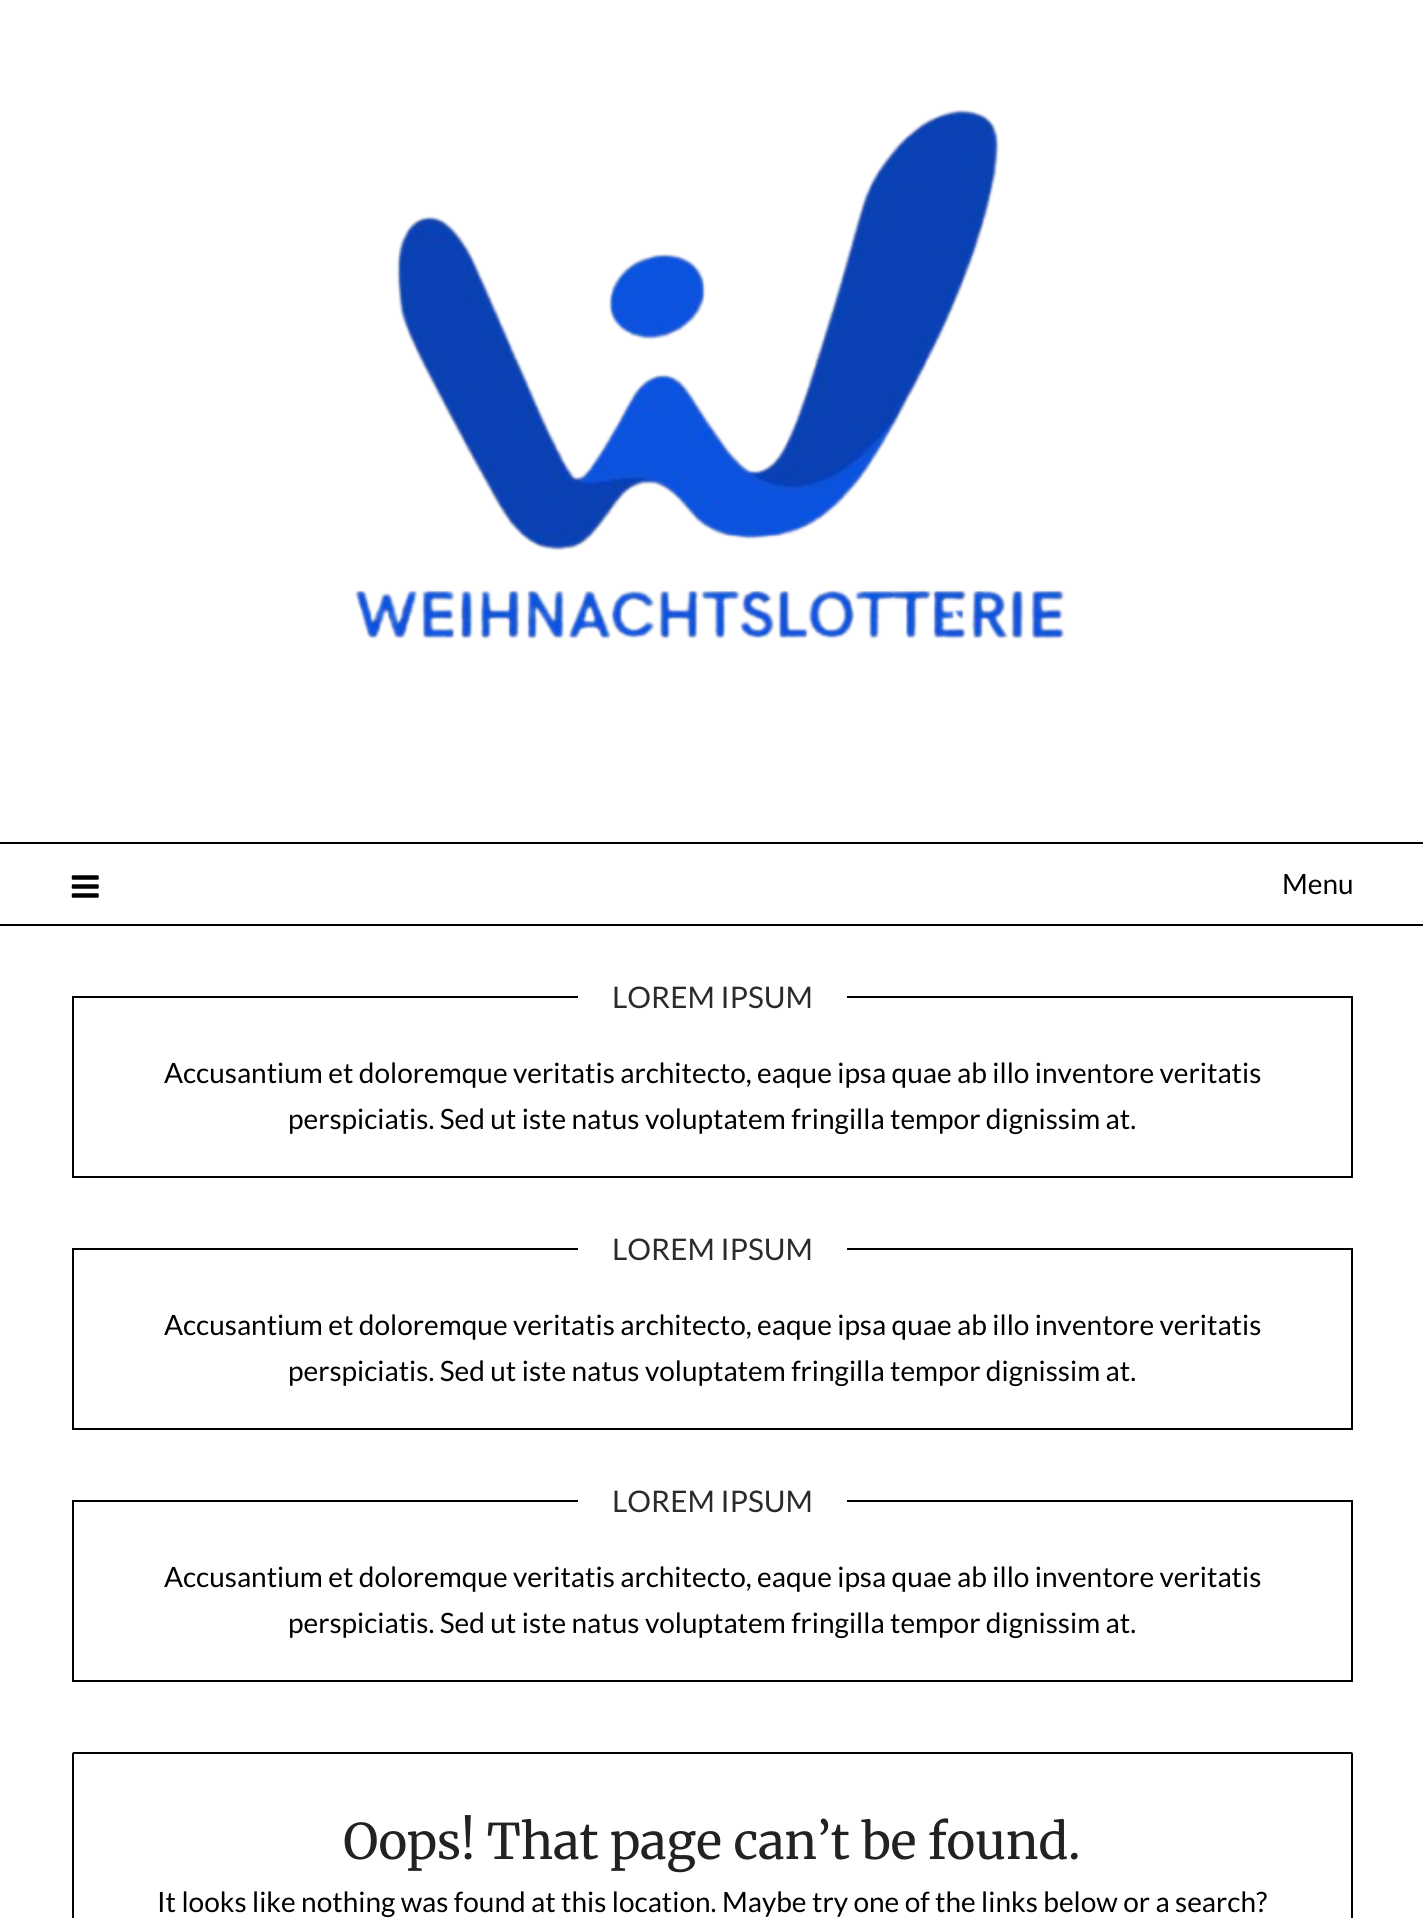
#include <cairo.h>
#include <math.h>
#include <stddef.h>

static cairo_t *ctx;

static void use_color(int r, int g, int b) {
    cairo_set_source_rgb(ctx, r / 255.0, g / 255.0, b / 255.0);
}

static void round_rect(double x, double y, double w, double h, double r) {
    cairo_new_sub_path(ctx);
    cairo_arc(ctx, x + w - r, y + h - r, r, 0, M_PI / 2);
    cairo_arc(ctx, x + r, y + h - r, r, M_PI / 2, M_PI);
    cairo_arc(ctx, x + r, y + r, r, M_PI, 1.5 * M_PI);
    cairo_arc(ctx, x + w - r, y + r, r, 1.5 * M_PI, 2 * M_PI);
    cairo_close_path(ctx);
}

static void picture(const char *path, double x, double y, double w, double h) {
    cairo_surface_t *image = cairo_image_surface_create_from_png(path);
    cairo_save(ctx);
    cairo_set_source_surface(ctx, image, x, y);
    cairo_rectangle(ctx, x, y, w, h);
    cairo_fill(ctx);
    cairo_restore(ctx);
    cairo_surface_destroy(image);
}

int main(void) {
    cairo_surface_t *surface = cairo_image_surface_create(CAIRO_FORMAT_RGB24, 1423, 1918);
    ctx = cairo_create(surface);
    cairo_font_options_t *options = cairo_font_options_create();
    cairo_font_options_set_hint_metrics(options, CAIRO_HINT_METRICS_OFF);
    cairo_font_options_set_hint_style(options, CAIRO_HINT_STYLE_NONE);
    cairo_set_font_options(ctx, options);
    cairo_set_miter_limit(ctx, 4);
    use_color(255, 255, 255);
    cairo_paint(ctx);
    picture("img1.png", 355, 109, 710, 531);
    use_color(0, 0, 0);
    cairo_rectangle(ctx, 0, 842, 1423, 2);
    cairo_fill(ctx);
    cairo_rectangle(ctx, 0, 924, 1423, 2);
    cairo_fill(ctx);
    picture("img2.png", 71, 875, 28, 23);
    cairo_select_font_face(ctx, "Lato", CAIRO_FONT_SLANT_NORMAL, CAIRO_FONT_WEIGHT_NORMAL);
    cairo_set_font_size(ctx, 28);
    cairo_move_to(ctx, 1282, 894);
    cairo_show_text(ctx, "Menu");
    cairo_rectangle(ctx, 73, 997, 1279, 180);
    cairo_stroke(ctx);
    use_color(255, 255, 255);
    cairo_rectangle(ctx, 578, 996, 269, 2);
    cairo_fill(ctx);
    cairo_set_font_size(ctx, 29.75);
    use_color(43, 43, 43);
    cairo_move_to(ctx, 612, 1008);
    cairo_show_text(ctx, "LOREM IPSUM");
    cairo_set_font_size(ctx, 28);
    use_color(0, 0, 0);
    cairo_move_to(ctx, 164, 1083);
    cairo_show_text(ctx, "Accusantium et doloremque veritatis architecto, eaque ipsa quae ab illo inventore veritatis");
    cairo_move_to(ctx, 288, 1129);
    cairo_show_text(ctx, "perspiciatis. Sed ut iste natus voluptatem fringilla tempor dignissim at.");
    cairo_rectangle(ctx, 73, 1249, 1279, 180);
    cairo_stroke(ctx);
    use_color(255, 255, 255);
    cairo_rectangle(ctx, 578, 1248, 269, 2);
    cairo_fill(ctx);
    cairo_set_font_size(ctx, 29.75);
    use_color(43, 43, 43);
    cairo_move_to(ctx, 612, 1260);
    cairo_show_text(ctx, "LOREM IPSUM");
    cairo_set_font_size(ctx, 28);
    use_color(0, 0, 0);
    cairo_move_to(ctx, 164, 1335);
    cairo_show_text(ctx, "Accusantium et doloremque veritatis architecto, eaque ipsa quae ab illo inventore veritatis");
    cairo_move_to(ctx, 288, 1381);
    cairo_show_text(ctx, "perspiciatis. Sed ut iste natus voluptatem fringilla tempor dignissim at.");
    cairo_rectangle(ctx, 73, 1501, 1279, 180);
    cairo_stroke(ctx);
    use_color(255, 255, 255);
    cairo_rectangle(ctx, 578, 1500, 269, 2);
    cairo_fill(ctx);
    cairo_set_font_size(ctx, 29.75);
    use_color(43, 43, 43);
    cairo_move_to(ctx, 612, 1512);
    cairo_show_text(ctx, "LOREM IPSUM");
    cairo_set_font_size(ctx, 28);
    use_color(0, 0, 0);
    cairo_move_to(ctx, 164, 1587);
    cairo_show_text(ctx, "Accusantium et doloremque veritatis architecto, eaque ipsa quae ab illo inventore veritatis");
    cairo_move_to(ctx, 288, 1633);
    cairo_show_text(ctx, "perspiciatis. Sed ut iste natus voluptatem fringilla tempor dignissim at.");
    round_rect(73, 1753, 1279, 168, 1);
    cairo_stroke(ctx);
    cairo_select_font_face(ctx, "Merriweather", CAIRO_FONT_SLANT_NORMAL, CAIRO_FONT_WEIGHT_NORMAL);
    cairo_set_font_size(ctx, 49);
    use_color(34, 34, 34);
    cairo_move_to(ctx, 343, 1859);
    cairo_show_text(ctx, "Oops! That page can’t be found.");
    cairo_select_font_face(ctx, "Lato", CAIRO_FONT_SLANT_NORMAL, CAIRO_FONT_WEIGHT_NORMAL);
    cairo_set_font_size(ctx, 28);
    use_color(0, 0, 0);
    cairo_move_to(ctx, 157, 1912);
    cairo_show_text(ctx, "It looks like nothing was found at this location. Maybe try one of the links below or a search?");
    cairo_surface_write_to_png(surface, "result.png");
    cairo_font_options_destroy(options);
    cairo_destroy(ctx);
    cairo_surface_destroy(surface);
    return 0;
}
